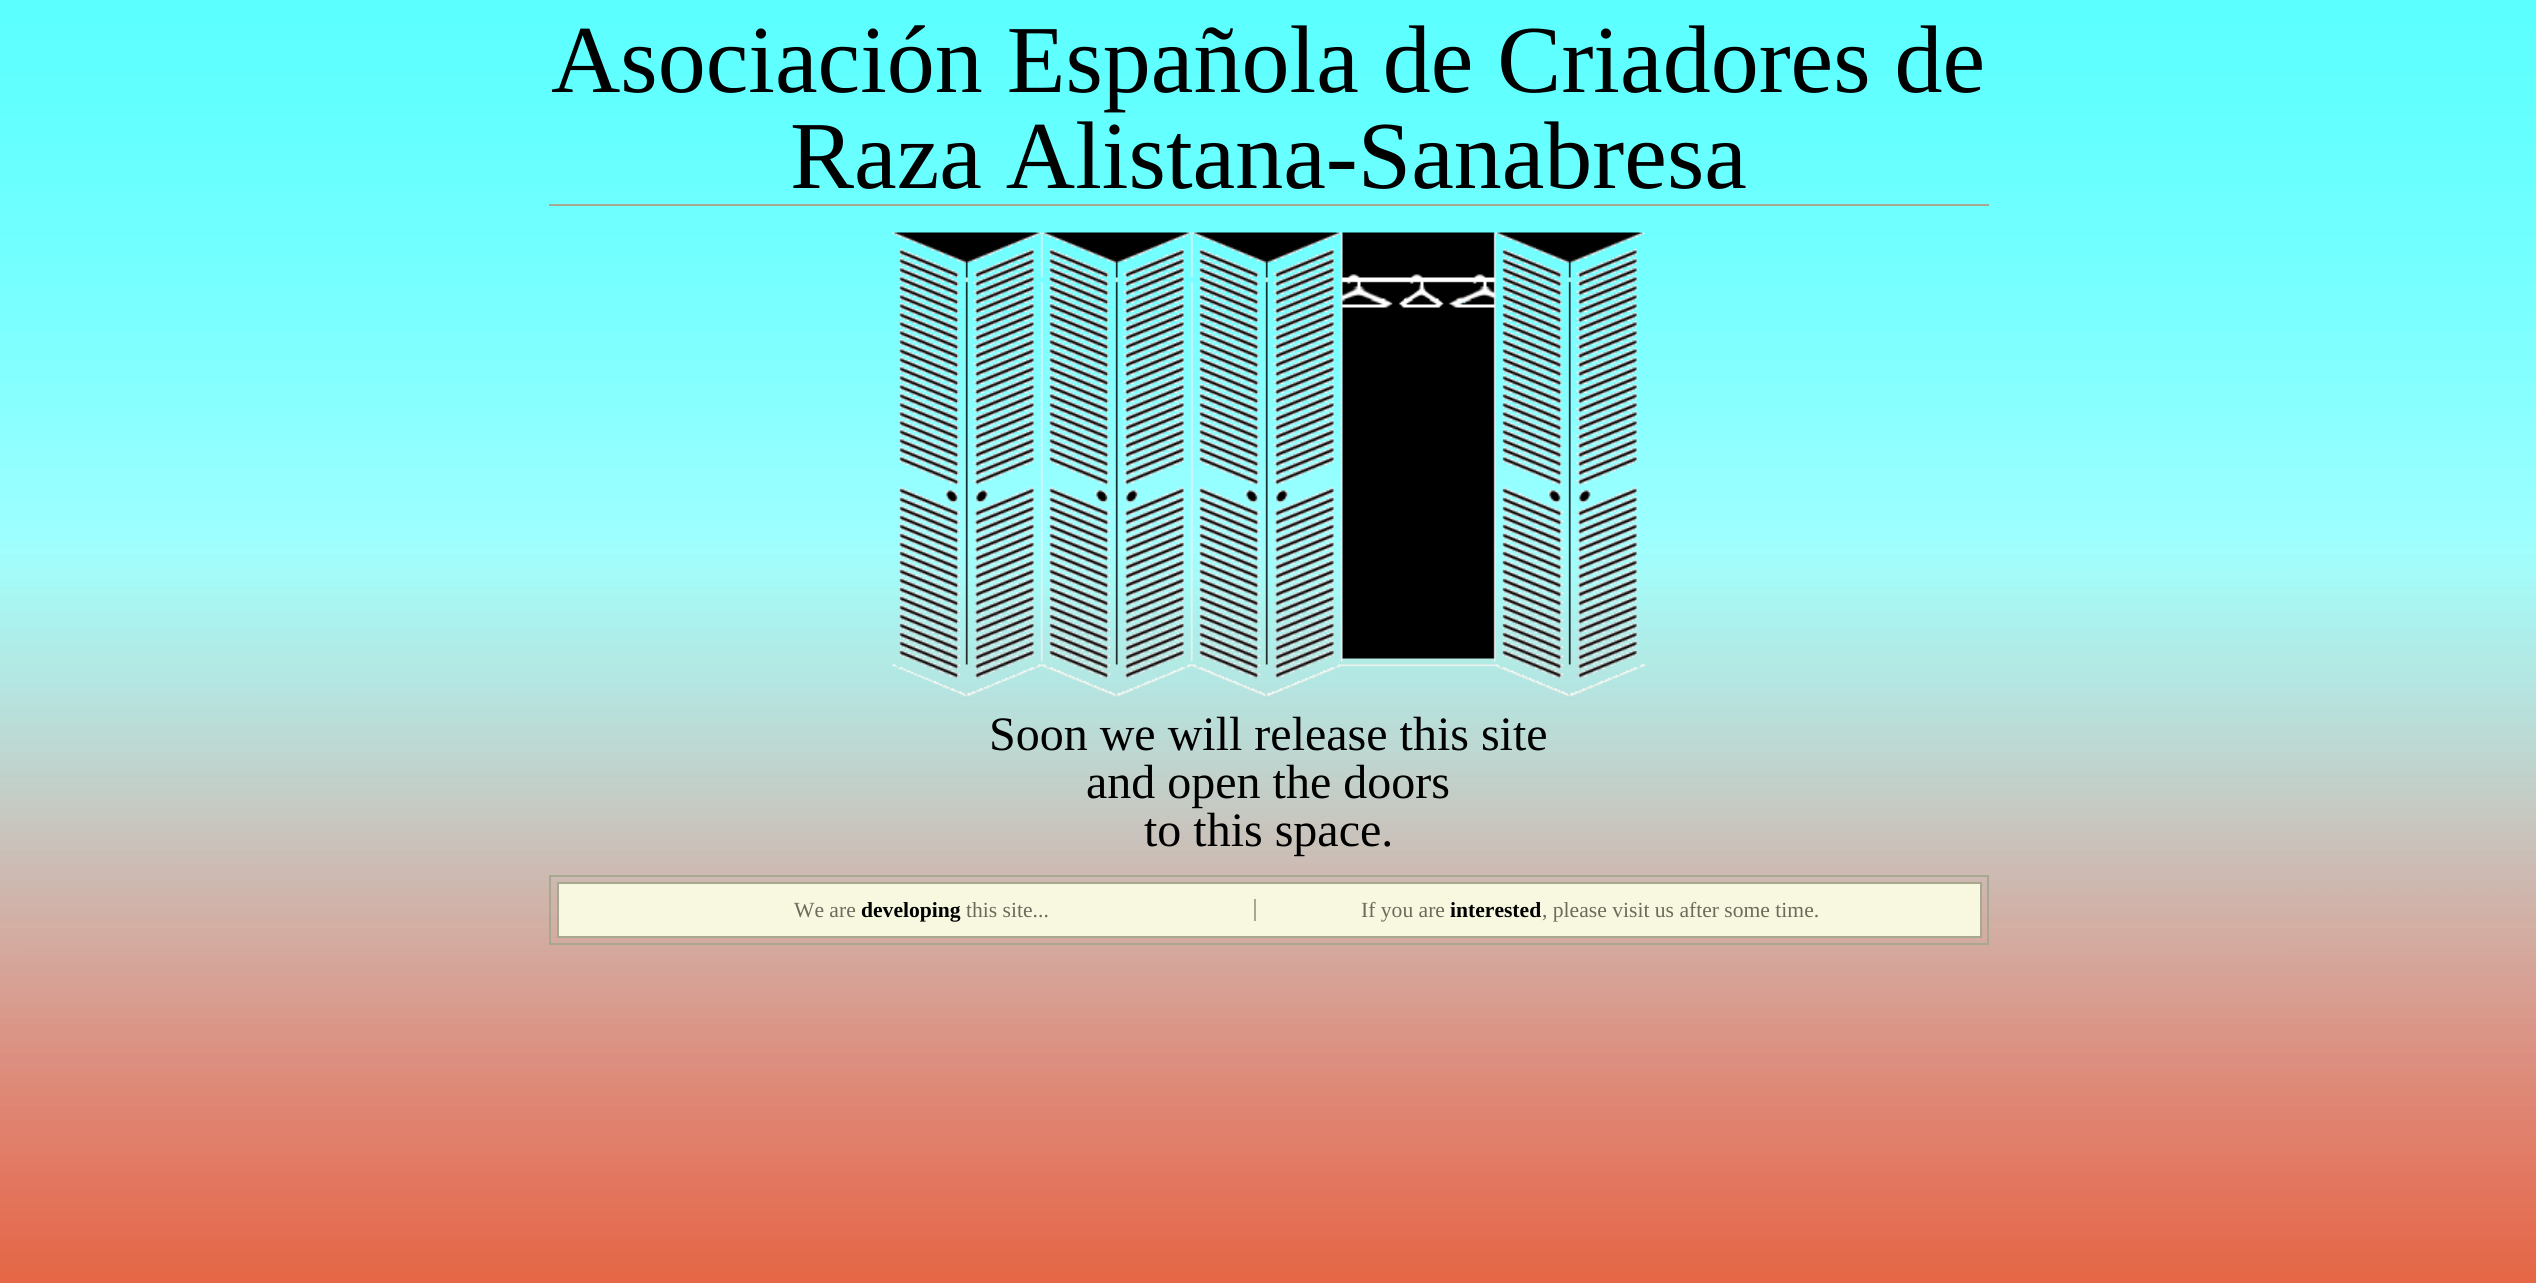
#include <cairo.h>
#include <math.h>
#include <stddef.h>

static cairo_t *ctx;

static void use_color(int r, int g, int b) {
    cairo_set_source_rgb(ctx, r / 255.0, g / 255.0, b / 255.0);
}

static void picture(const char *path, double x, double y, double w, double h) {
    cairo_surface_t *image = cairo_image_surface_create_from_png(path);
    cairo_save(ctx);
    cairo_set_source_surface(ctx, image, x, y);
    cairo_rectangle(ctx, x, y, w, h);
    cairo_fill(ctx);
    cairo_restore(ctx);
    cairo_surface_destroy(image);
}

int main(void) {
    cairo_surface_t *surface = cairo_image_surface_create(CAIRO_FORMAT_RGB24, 2536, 1283);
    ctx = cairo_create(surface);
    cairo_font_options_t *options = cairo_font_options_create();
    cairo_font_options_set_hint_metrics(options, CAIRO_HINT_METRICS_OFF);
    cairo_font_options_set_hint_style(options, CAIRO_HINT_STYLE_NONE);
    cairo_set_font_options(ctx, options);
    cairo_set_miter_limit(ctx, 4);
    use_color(255, 255, 255);
    cairo_paint(ctx);
    picture("img1.png", 0, 0, 2536, 1283);
    use_color(168, 168, 144);
    cairo_rectangle(ctx, 549, 204, 1440, 2);
    cairo_fill(ctx);
    cairo_select_font_face(ctx, "Liberation Serif", CAIRO_FONT_SLANT_NORMAL, CAIRO_FONT_WEIGHT_NORMAL);
    cairo_set_font_size(ctx, 96);
    use_color(0, 0, 0);
    cairo_move_to(ctx, 551, 92);
    cairo_show_text(ctx, "Asociación Española de Criadores de");
    cairo_move_to(ctx, 790, 188);
    cairo_show_text(ctx, "Raza Alistana-Sanabresa");
    picture("img2.png", 892, 232, 754, 465);
    cairo_set_font_size(ctx, 48);
    cairo_move_to(ctx, 989, 750);
    cairo_show_text(ctx, "Soon we will release this site");
    cairo_move_to(ctx, 1086, 798);
    cairo_show_text(ctx, "and open the doors");
    cairo_move_to(ctx, 1144, 846);
    cairo_show_text(ctx, "to this space.");
    cairo_rectangle(ctx, 550, 876, 1438, 68);
    use_color(168, 168, 144);
    cairo_stroke(ctx);
    use_color(248, 248, 224);
    cairo_rectangle(ctx, 558, 883, 1423, 54);
    cairo_fill_preserve(ctx);
    use_color(168, 168, 144);
    cairo_stroke(ctx);
    cairo_set_font_size(ctx, 21.6);
    use_color(109, 106, 91);
    cairo_move_to(ctx, 794, 917);
    cairo_show_text(ctx, "We are");
    cairo_select_font_face(ctx, "Liberation Serif", CAIRO_FONT_SLANT_NORMAL, CAIRO_FONT_WEIGHT_BOLD);
    use_color(0, 0, 0);
    cairo_move_to(ctx, 861, 917);
    cairo_show_text(ctx, "developing");
    cairo_select_font_face(ctx, "Liberation Serif", CAIRO_FONT_SLANT_NORMAL, CAIRO_FONT_WEIGHT_NORMAL);
    use_color(109, 106, 91);
    cairo_move_to(ctx, 966, 917);
    cairo_show_text(ctx, "this site...");
    use_color(168, 168, 144);
    cairo_rectangle(ctx, 1254, 899, 2, 22);
    cairo_fill(ctx);
    use_color(109, 106, 91);
    cairo_move_to(ctx, 1361, 917);
    cairo_show_text(ctx, "If you are");
    cairo_select_font_face(ctx, "Liberation Serif", CAIRO_FONT_SLANT_NORMAL, CAIRO_FONT_WEIGHT_BOLD);
    use_color(0, 0, 0);
    cairo_move_to(ctx, 1450, 917);
    cairo_show_text(ctx, "interested");
    cairo_select_font_face(ctx, "Liberation Serif", CAIRO_FONT_SLANT_NORMAL, CAIRO_FONT_WEIGHT_NORMAL);
    use_color(109, 106, 91);
    cairo_move_to(ctx, 1542, 917);
    cairo_show_text(ctx, ", please visit us after some time.");
    cairo_surface_write_to_png(surface, "result.png");
    cairo_font_options_destroy(options);
    cairo_destroy(ctx);
    cairo_surface_destroy(surface);
    return 0;
}
